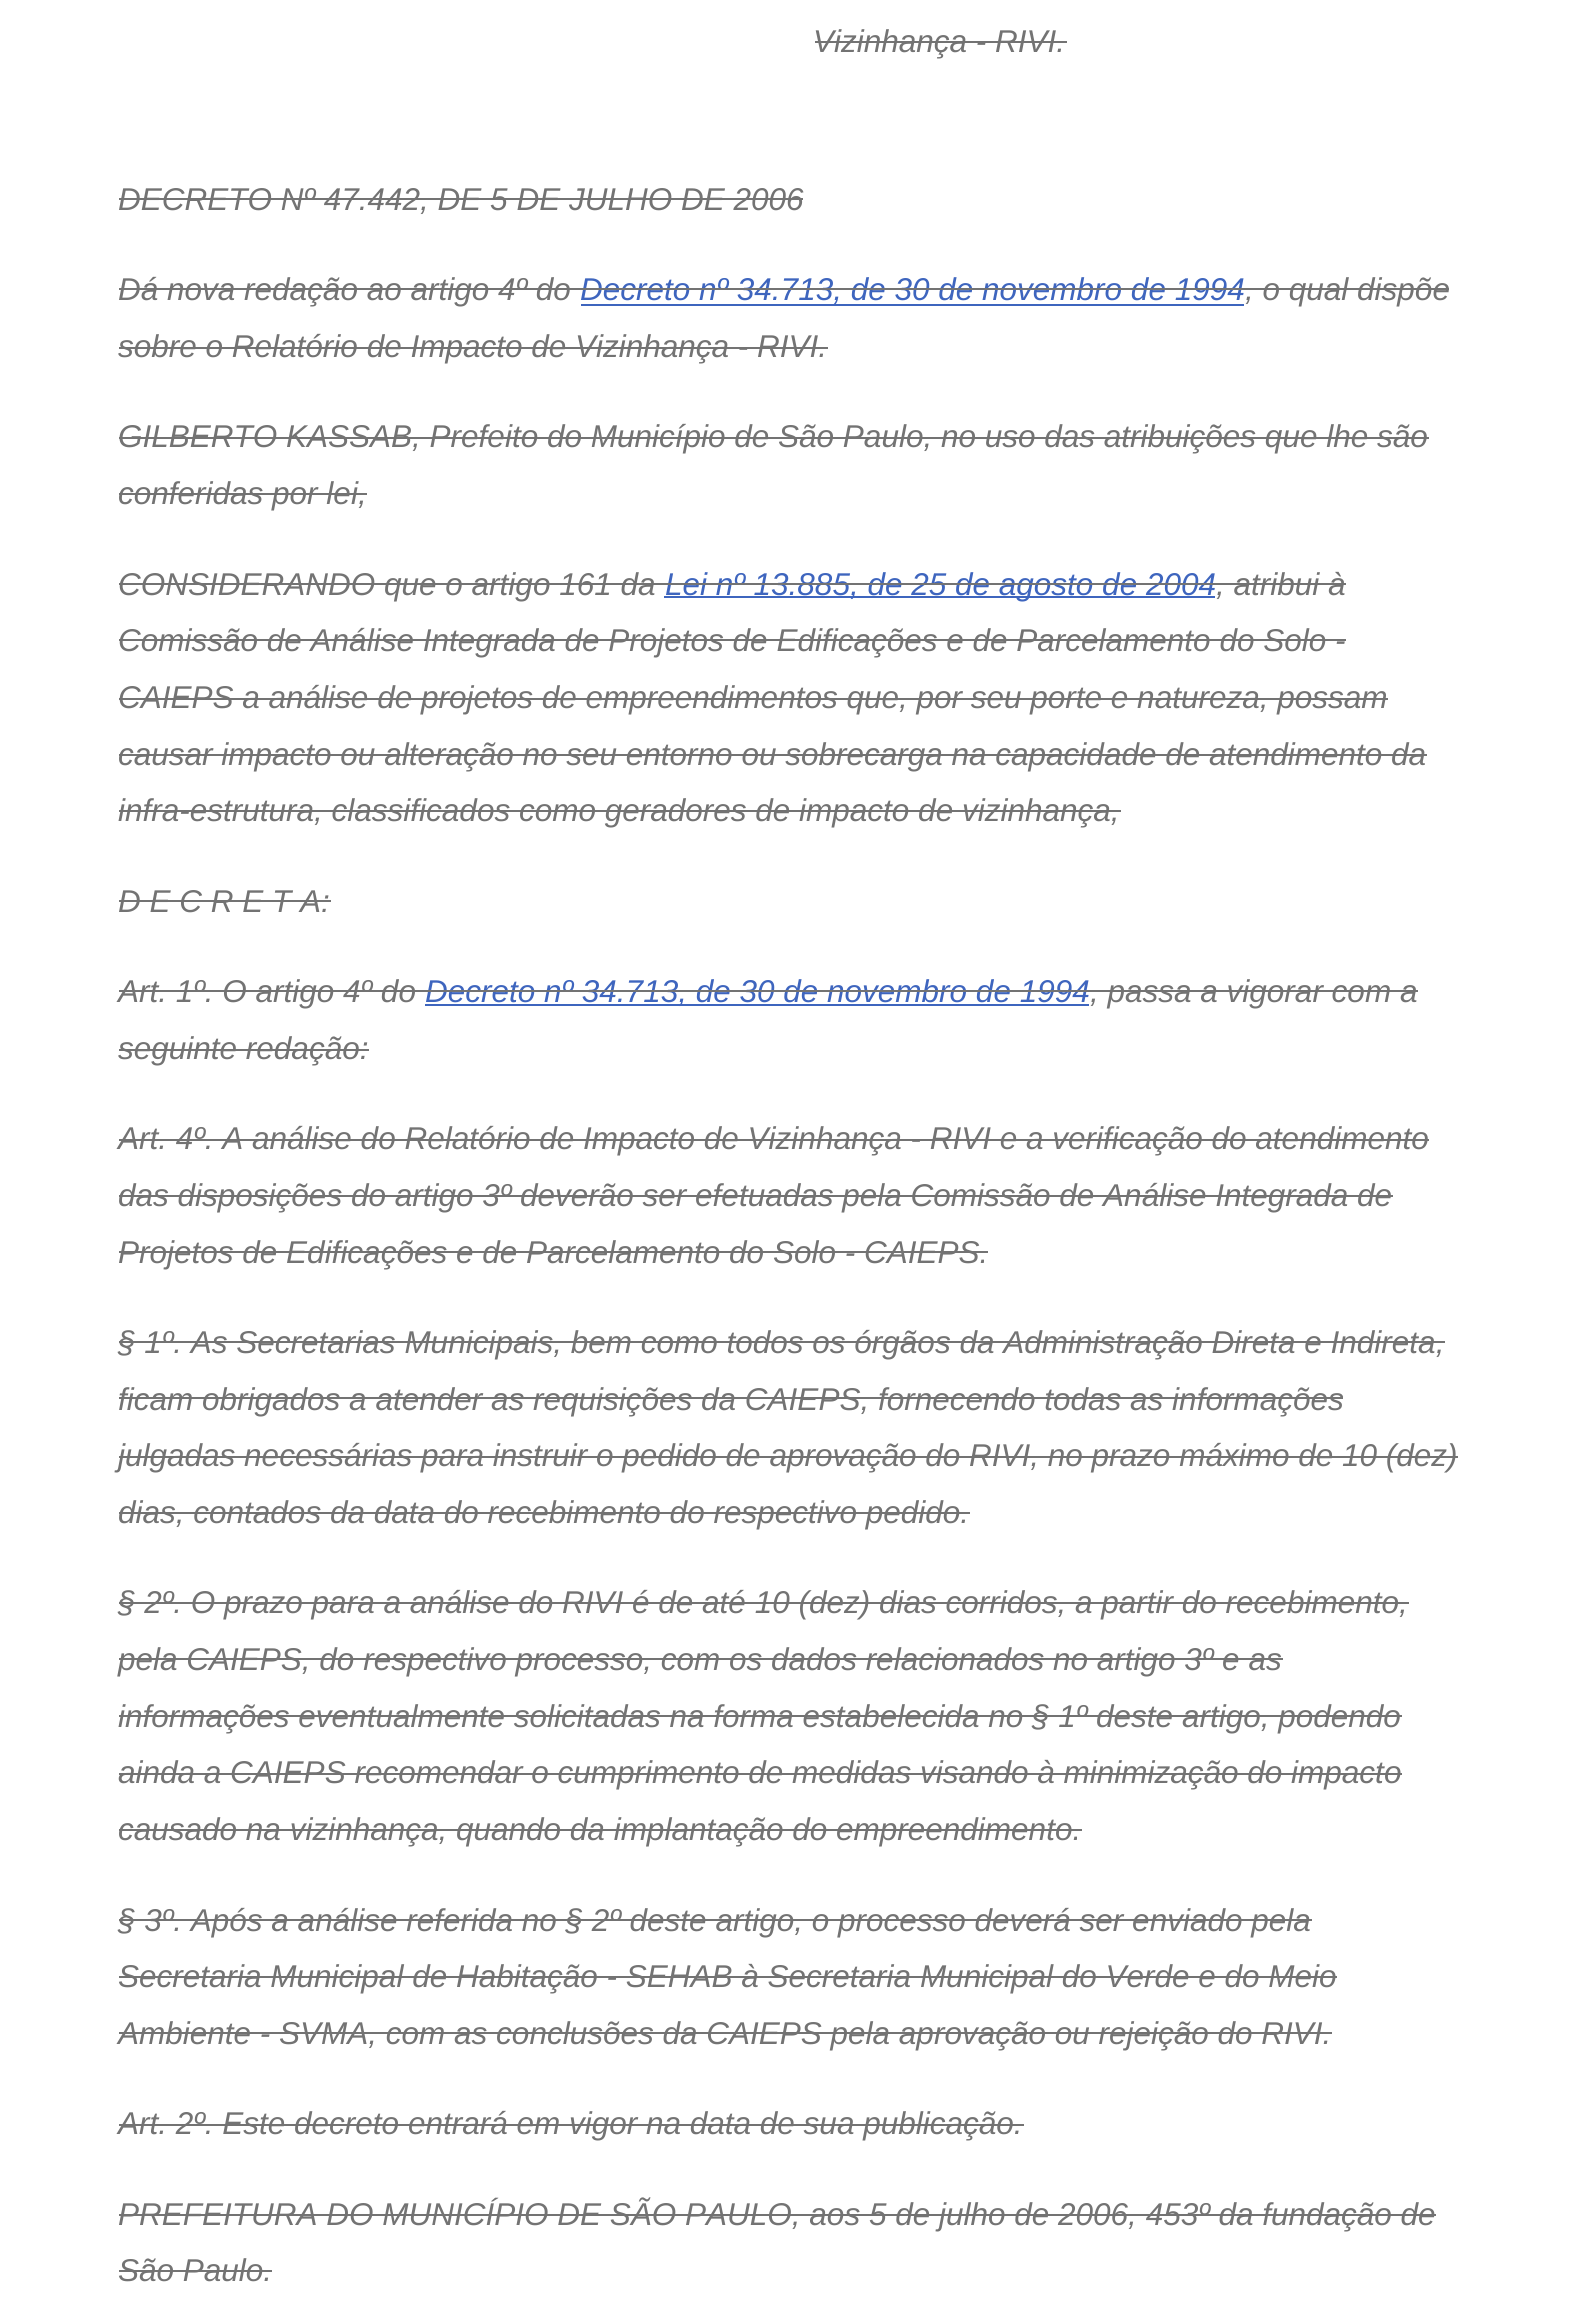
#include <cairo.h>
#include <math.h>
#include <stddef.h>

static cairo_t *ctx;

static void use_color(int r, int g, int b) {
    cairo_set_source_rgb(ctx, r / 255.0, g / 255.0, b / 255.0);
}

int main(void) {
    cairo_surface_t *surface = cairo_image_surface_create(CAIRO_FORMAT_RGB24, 1579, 2299);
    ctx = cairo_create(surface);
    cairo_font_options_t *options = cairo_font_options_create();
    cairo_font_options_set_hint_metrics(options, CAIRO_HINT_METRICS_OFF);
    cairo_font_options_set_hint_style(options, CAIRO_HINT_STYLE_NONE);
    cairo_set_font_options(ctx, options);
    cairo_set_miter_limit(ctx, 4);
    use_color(255, 255, 255);
    cairo_paint(ctx);
    cairo_select_font_face(ctx, "Liberation Sans", CAIRO_FONT_SLANT_ITALIC, CAIRO_FONT_WEIGHT_NORMAL);
    cairo_set_font_size(ctx, 31.5);
    use_color(115, 115, 115);
    cairo_move_to(ctx, 813, 52);
    cairo_show_text(ctx, "Vizinhança - RIVI.");
    cairo_rectangle(ctx, 815, 41, 252, 2);
    cairo_fill(ctx);
    cairo_move_to(ctx, 118, 210);
    cairo_show_text(ctx, "DECRETO Nº 47.442, DE 5 DE JULHO DE 2006");
    cairo_rectangle(ctx, 119, 198, 684, 2);
    cairo_fill(ctx);
    cairo_move_to(ctx, 118, 300);
    cairo_show_text(ctx, "Dá nova redação ao artigo 4º do");
    cairo_rectangle(ctx, 119, 288, 462, 2);
    cairo_fill(ctx);
    use_color(62, 101, 190);
    cairo_move_to(ctx, 580, 300);
    cairo_show_text(ctx, "Decreto nº 34.713, de 30 de novembro de 1994");
    cairo_rectangle(ctx, 581, 304, 663, 2);
    cairo_fill(ctx);
    use_color(115, 115, 115);
    cairo_rectangle(ctx, 581, 288, 663, 2);
    cairo_fill(ctx);
    cairo_move_to(ctx, 1245, 300);
    cairo_show_text(ctx, ", o qual dispõe");
    cairo_rectangle(ctx, 1244, 288, 205, 2);
    cairo_fill(ctx);
    cairo_move_to(ctx, 118, 357);
    cairo_show_text(ctx, "sobre o Relatório de Impacto de Vizinhança - RIVI.");
    cairo_rectangle(ctx, 119, 347, 709, 2);
    cairo_fill(ctx);
    cairo_move_to(ctx, 118, 447);
    cairo_show_text(ctx, "GILBERTO KASSAB, Prefeito do Município de São Paulo, no uso das atribuições que lhe são");
    cairo_rectangle(ctx, 119, 437, 1310, 2);
    cairo_fill(ctx);
    cairo_move_to(ctx, 118, 504);
    cairo_show_text(ctx, "conferidas por lei,");
    cairo_rectangle(ctx, 119, 493, 248, 2);
    cairo_fill(ctx);
    cairo_move_to(ctx, 118, 595);
    cairo_show_text(ctx, "CONSIDERANDO que o artigo 161 da");
    cairo_rectangle(ctx, 119, 583, 545, 2);
    cairo_fill(ctx);
    use_color(62, 101, 190);
    cairo_rectangle(ctx, 664, 596, 551, 2);
    cairo_fill(ctx);
    cairo_move_to(ctx, 665, 595);
    cairo_show_text(ctx, "Lei nº 13.885, de 25 de agosto de 2004");
    use_color(115, 115, 115);
    cairo_rectangle(ctx, 664, 583, 551, 2);
    cairo_fill(ctx);
    cairo_move_to(ctx, 1216, 595);
    cairo_show_text(ctx, ", atribui à");
    cairo_rectangle(ctx, 1215, 583, 131, 2);
    cairo_fill(ctx);
    cairo_move_to(ctx, 118, 651);
    cairo_show_text(ctx, "Comissão de Análise Integrada de Projetos de Edificações e de Parcelamento do Solo -");
    cairo_rectangle(ctx, 119, 639, 1227, 2);
    cairo_fill(ctx);
    cairo_move_to(ctx, 118, 708);
    cairo_show_text(ctx, "CAIEPS a análise de projetos de empreendimentos que, por seu porte e natureza, possam");
    cairo_rectangle(ctx, 119, 698, 1269, 2);
    cairo_fill(ctx);
    cairo_move_to(ctx, 118, 765);
    cairo_show_text(ctx, "causar impacto ou alteração no seu entorno ou sobrecarga na capacidade de atendimento da");
    cairo_rectangle(ctx, 119, 754, 1308, 2);
    cairo_fill(ctx);
    cairo_move_to(ctx, 118, 821);
    cairo_show_text(ctx, "infra-estrutura, classificados como geradores de impacto de vizinhança,");
    cairo_rectangle(ctx, 119, 810, 1002, 2);
    cairo_fill(ctx);
    cairo_move_to(ctx, 118, 912);
    cairo_show_text(ctx, "D E C R E T A:");
    cairo_rectangle(ctx, 119, 900, 212, 2);
    cairo_fill(ctx);
    cairo_move_to(ctx, 118, 1002);
    cairo_show_text(ctx, "Art. 1º. O artigo 4º do");
    cairo_rectangle(ctx, 119, 990, 306, 2);
    cairo_fill(ctx);
    use_color(62, 101, 190);
    cairo_rectangle(ctx, 425, 1004, 664, 2);
    cairo_fill(ctx);
    cairo_move_to(ctx, 425, 1002);
    cairo_show_text(ctx, "Decreto nº 34.713, de 30 de novembro de 1994");
    use_color(115, 115, 115);
    cairo_rectangle(ctx, 425, 990, 664, 2);
    cairo_fill(ctx);
    cairo_move_to(ctx, 1090, 1002);
    cairo_show_text(ctx, ", passa a vigorar com a");
    cairo_rectangle(ctx, 1089, 990, 329, 2);
    cairo_fill(ctx);
    cairo_move_to(ctx, 118, 1059);
    cairo_show_text(ctx, "seguinte redação:");
    cairo_rectangle(ctx, 119, 1049, 250, 2);
    cairo_fill(ctx);
    cairo_move_to(ctx, 118, 1149);
    cairo_show_text(ctx, "Art. 4º. A análise do Relatório de Impacto de Vizinhança - RIVI e a verificação do atendimento");
    cairo_rectangle(ctx, 119, 1139, 1310, 2);
    cairo_fill(ctx);
    cairo_move_to(ctx, 118, 1206);
    cairo_show_text(ctx, "das disposições do artigo 3º deverão ser efetuadas pela Comissão de Análise Integrada de");
    cairo_rectangle(ctx, 119, 1195, 1274, 2);
    cairo_fill(ctx);
    cairo_move_to(ctx, 118, 1263);
    cairo_show_text(ctx, "Projetos de Edificações e de Parcelamento do Solo - CAIEPS.");
    cairo_rectangle(ctx, 119, 1251, 869, 2);
    cairo_fill(ctx);
    cairo_move_to(ctx, 118, 1353);
    cairo_show_text(ctx, "§ 1º. As Secretarias Municipais, bem como todos os órgãos da Administração Direta e Indireta,");
    cairo_rectangle(ctx, 119, 1341, 1326, 2);
    cairo_fill(ctx);
    cairo_move_to(ctx, 118, 1410);
    cairo_show_text(ctx, "ficam obrigados a atender as requisições da CAIEPS, fornecendo todas as informações");
    cairo_rectangle(ctx, 119, 1397, 1224, 2);
    cairo_fill(ctx);
    cairo_move_to(ctx, 118, 1466);
    cairo_show_text(ctx, "julgadas necessárias para instruir o pedido de aprovação do RIVI, no prazo máximo de 10 (dez)");
    cairo_rectangle(ctx, 119, 1456, 1339, 2);
    cairo_fill(ctx);
    cairo_move_to(ctx, 118, 1523);
    cairo_show_text(ctx, "dias, contados da data do recebimento do respectivo pedido.");
    cairo_rectangle(ctx, 119, 1512, 851, 2);
    cairo_fill(ctx);
    cairo_move_to(ctx, 118, 1613);
    cairo_show_text(ctx, "§ 2º. O prazo para a análise do RIVI é de até 10 (dez) dias corridos, a partir do recebimento,");
    cairo_rectangle(ctx, 119, 1602, 1290, 2);
    cairo_fill(ctx);
    cairo_move_to(ctx, 118, 1670);
    cairo_show_text(ctx, "pela CAIEPS, do respectivo processo, com os dados relacionados no artigo 3º e as");
    cairo_rectangle(ctx, 119, 1658, 1164, 2);
    cairo_fill(ctx);
    cairo_move_to(ctx, 118, 1727);
    cairo_show_text(ctx, "informações eventualmente solicitadas na forma estabelecida no § 1º deste artigo, podendo");
    cairo_rectangle(ctx, 119, 1715, 1283, 2);
    cairo_fill(ctx);
    cairo_move_to(ctx, 118, 1783);
    cairo_show_text(ctx, "ainda a CAIEPS recomendar o cumprimento de medidas visando à minimização do impacto");
    cairo_rectangle(ctx, 119, 1773, 1283, 2);
    cairo_fill(ctx);
    cairo_move_to(ctx, 118, 1840);
    cairo_show_text(ctx, "causado na vizinhança, quando da implantação do empreendimento.");
    cairo_rectangle(ctx, 119, 1829, 963, 2);
    cairo_fill(ctx);
    cairo_move_to(ctx, 118, 1931);
    cairo_show_text(ctx, "§ 3º. Após a análise referida no § 2º deste artigo, o processo deverá ser enviado pela");
    cairo_rectangle(ctx, 119, 1919, 1193, 2);
    cairo_fill(ctx);
    cairo_move_to(ctx, 118, 1987);
    cairo_show_text(ctx, "Secretaria Municipal de Habitação - SEHAB à Secretaria Municipal do Verde e do Meio");
    cairo_rectangle(ctx, 119, 1976, 1218, 2);
    cairo_fill(ctx);
    cairo_move_to(ctx, 118, 2044);
    cairo_show_text(ctx, "Ambiente - SVMA, com as conclusões da CAIEPS pela aprovação ou rejeição do RIVI.");
    cairo_rectangle(ctx, 119, 2032, 1213, 2);
    cairo_fill(ctx);
    cairo_move_to(ctx, 118, 2134);
    cairo_show_text(ctx, "Art. 2º. Este decreto entrará em vigor na data de sua publicação.");
    cairo_rectangle(ctx, 119, 2124, 905, 2);
    cairo_fill(ctx);
    cairo_move_to(ctx, 118, 2225);
    cairo_show_text(ctx, "PREFEITURA DO MUNICÍPIO DE SÃO PAULO, aos 5 de julho de 2006, 453º da fundação de");
    cairo_rectangle(ctx, 119, 2214, 1317, 2);
    cairo_fill(ctx);
    cairo_move_to(ctx, 118, 2281);
    cairo_show_text(ctx, "São Paulo.");
    cairo_rectangle(ctx, 119, 2270, 153, 2);
    cairo_fill(ctx);
    cairo_surface_write_to_png(surface, "result.png");
    cairo_font_options_destroy(options);
    cairo_destroy(ctx);
    cairo_surface_destroy(surface);
    return 0;
}
